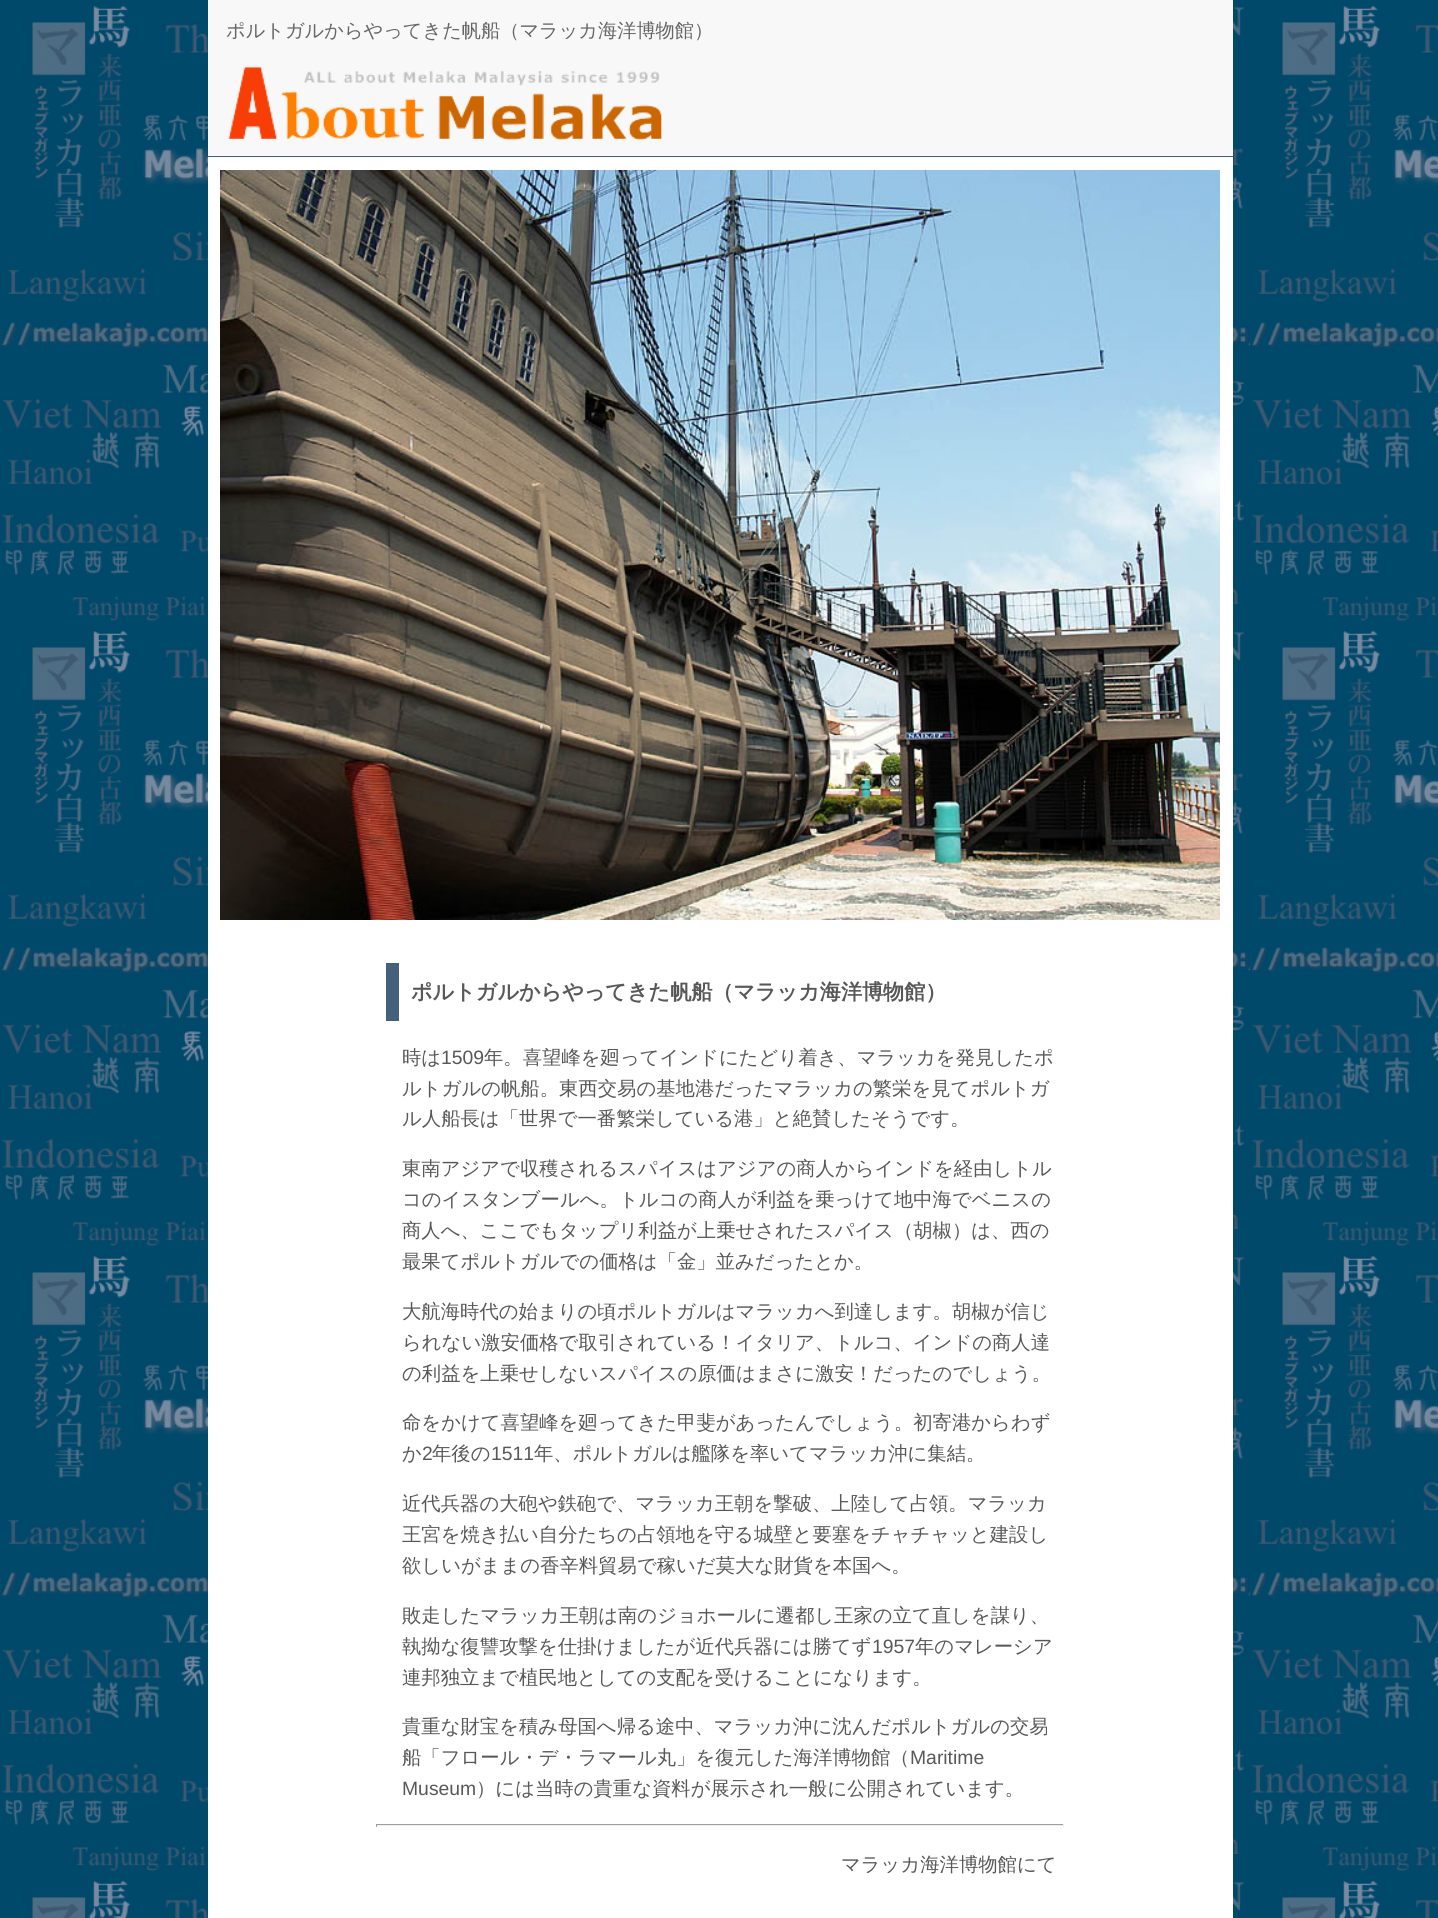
#include <cairo.h>
#include <math.h>
#include <stddef.h>

static cairo_t *ctx;

static void use_color(int r, int g, int b) {
    cairo_set_source_rgb(ctx, r / 255.0, g / 255.0, b / 255.0);
}

static void picture(const char *path, double x, double y, double w, double h) {
    cairo_surface_t *image = cairo_image_surface_create_from_png(path);
    cairo_save(ctx);
    cairo_set_source_surface(ctx, image, x, y);
    cairo_rectangle(ctx, x, y, w, h);
    cairo_fill(ctx);
    cairo_restore(ctx);
    cairo_surface_destroy(image);
}

int main(void) {
    cairo_surface_t *surface = cairo_image_surface_create(CAIRO_FORMAT_RGB24, 1438, 1918);
    ctx = cairo_create(surface);
    cairo_font_options_t *options = cairo_font_options_create();
    cairo_font_options_set_hint_metrics(options, CAIRO_HINT_METRICS_OFF);
    cairo_font_options_set_hint_style(options, CAIRO_HINT_STYLE_NONE);
    cairo_set_font_options(ctx, options);
    cairo_set_miter_limit(ctx, 4);
    use_color(255, 255, 255);
    cairo_paint(ctx);
    picture("img1.png", 0, 0, 1438, 1918);
    use_color(255, 255, 255);
    cairo_rectangle(ctx, 208, 158, 1025, 1760);
    cairo_fill(ctx);
    use_color(248, 248, 248);
    cairo_rectangle(ctx, 208, 0, 1025, 158);
    cairo_fill(ctx);
    use_color(68, 97, 123);
    cairo_rectangle(ctx, 208, 156, 1025, 1);
    cairo_fill(ctx);
    cairo_select_font_face(ctx, "WenQuanYi Zen Hei Medium", CAIRO_FONT_SLANT_NORMAL, CAIRO_FONT_WEIGHT_NORMAL);
    cairo_set_font_size(ctx, 19.2);
    use_color(102, 102, 102);
    cairo_move_to(ctx, 226, 37);
    cairo_show_text(ctx, "ポルトガルからやってきた帆船（マラッカ海洋博物館）");
    picture("img2.png", 228, 66, 434, 74);
    picture("img3.png", 220, 170, 1000, 750);
    use_color(68, 97, 123);
    cairo_rectangle(ctx, 386, 963, 13, 58);
    cairo_fill(ctx);
    cairo_select_font_face(ctx, "WenQuanYi Zen Hei", CAIRO_FONT_SLANT_NORMAL, CAIRO_FONT_WEIGHT_BOLD);
    cairo_set_font_size(ctx, 21.1);
    use_color(88, 88, 88);
    cairo_move_to(ctx, 411, 999);
    cairo_show_text(ctx, "ポルトガルからやってきた帆船（マラッカ海洋博物館）");
    cairo_select_font_face(ctx, "WenQuanYi Zen Hei Medium", CAIRO_FONT_SLANT_NORMAL, CAIRO_FONT_WEIGHT_NORMAL);
    cairo_set_font_size(ctx, 19.35);
    cairo_move_to(ctx, 402, 1064);
    cairo_show_text(ctx, "時は");
    cairo_select_font_face(ctx, "Liberation Sans", CAIRO_FONT_SLANT_NORMAL, CAIRO_FONT_WEIGHT_NORMAL);
    cairo_move_to(ctx, 441, 1064);
    cairo_show_text(ctx, "1509");
    cairo_select_font_face(ctx, "WenQuanYi Zen Hei Medium", CAIRO_FONT_SLANT_NORMAL, CAIRO_FONT_WEIGHT_NORMAL);
    cairo_move_to(ctx, 484, 1064);
    cairo_show_text(ctx, "年。喜望峰を廻ってインドにたどり着き、マラッカを発見したポ");
    cairo_move_to(ctx, 402, 1095);
    cairo_show_text(ctx, "ルトガルの帆船。東西交易の基地港だったマラッカの繁栄を見てポルトガ");
    cairo_move_to(ctx, 402, 1125);
    cairo_show_text(ctx, "ル人船長は「世界で一番繁栄している港」と絶賛したそうです。");
    cairo_move_to(ctx, 402, 1175);
    cairo_show_text(ctx, "東南アジアで収穫されるスパイスはアジアの商人からインドを経由しトル");
    cairo_move_to(ctx, 402, 1206);
    cairo_show_text(ctx, "コのイスタンブールへ。トルコの商人が利益を乗っけて地中海でベニスの");
    cairo_move_to(ctx, 402, 1237);
    cairo_show_text(ctx, "商人へ、ここでもタップリ利益が上乗せされたスパイス（胡椒）は、西の");
    cairo_move_to(ctx, 402, 1268);
    cairo_show_text(ctx, "最果てポルトガルでの価格は「金」並みだったとか。");
    cairo_move_to(ctx, 402, 1318);
    cairo_show_text(ctx, "大航海時代の始まりの頃ポルトガルはマラッカへ到達します。胡椒が信じ");
    cairo_move_to(ctx, 402, 1349);
    cairo_show_text(ctx, "られない激安価格で取引されている！イタリア、トルコ、インドの商人達");
    cairo_move_to(ctx, 402, 1380);
    cairo_show_text(ctx, "の利益を上乗せしないスパイスの原価はまさに激安！だったのでしょう。");
    cairo_move_to(ctx, 402, 1429);
    cairo_show_text(ctx, "命をかけて喜望峰を廻ってきた甲斐があったんでしょう。初寄港からわず");
    cairo_move_to(ctx, 402, 1460);
    cairo_show_text(ctx, "か");
    cairo_select_font_face(ctx, "Liberation Sans", CAIRO_FONT_SLANT_NORMAL, CAIRO_FONT_WEIGHT_NORMAL);
    cairo_move_to(ctx, 422, 1460);
    cairo_show_text(ctx, "2");
    cairo_select_font_face(ctx, "WenQuanYi Zen Hei Medium", CAIRO_FONT_SLANT_NORMAL, CAIRO_FONT_WEIGHT_NORMAL);
    cairo_move_to(ctx, 432, 1460);
    cairo_show_text(ctx, "年後の");
    cairo_select_font_face(ctx, "Liberation Sans", CAIRO_FONT_SLANT_NORMAL, CAIRO_FONT_WEIGHT_NORMAL);
    cairo_move_to(ctx, 491, 1460);
    cairo_show_text(ctx, "1511");
    cairo_select_font_face(ctx, "WenQuanYi Zen Hei Medium", CAIRO_FONT_SLANT_NORMAL, CAIRO_FONT_WEIGHT_NORMAL);
    cairo_move_to(ctx, 534, 1460);
    cairo_show_text(ctx, "年、ポルトガルは艦隊を率いてマラッカ沖に集結。");
    cairo_move_to(ctx, 402, 1510);
    cairo_show_text(ctx, "近代兵器の大砲や鉄砲で、マラッカ王朝を撃破、上陸して占領。マラッカ");
    cairo_move_to(ctx, 402, 1541);
    cairo_show_text(ctx, "王宮を焼き払い自分たちの占領地を守る城壁と要塞をチャチャッと建設し");
    cairo_move_to(ctx, 402, 1572);
    cairo_show_text(ctx, "欲しいがままの香辛料貿易で稼いだ莫大な財貨を本国へ。");
    cairo_move_to(ctx, 402, 1622);
    cairo_show_text(ctx, "敗走したマラッカ王朝は南のジョホールに遷都し王家の立て直しを謀り、");
    cairo_move_to(ctx, 402, 1653);
    cairo_show_text(ctx, "執拗な復讐攻撃を仕掛けましたが近代兵器には勝てず");
    cairo_select_font_face(ctx, "Liberation Sans", CAIRO_FONT_SLANT_NORMAL, CAIRO_FONT_WEIGHT_NORMAL);
    cairo_move_to(ctx, 872, 1653);
    cairo_show_text(ctx, "1957");
    cairo_select_font_face(ctx, "WenQuanYi Zen Hei Medium", CAIRO_FONT_SLANT_NORMAL, CAIRO_FONT_WEIGHT_NORMAL);
    cairo_move_to(ctx, 915, 1653);
    cairo_show_text(ctx, "年のマレーシア");
    cairo_move_to(ctx, 402, 1684);
    cairo_show_text(ctx, "連邦独立まで植民地としての支配を受けることになります。");
    cairo_move_to(ctx, 402, 1733);
    cairo_show_text(ctx, "貴重な財宝を積み母国へ帰る途中、マラッカ沖に沈んだポルトガルの交易");
    cairo_move_to(ctx, 402, 1764);
    cairo_show_text(ctx, "船「フロール・デ・ラマール丸」を復元した海洋博物館（");
    cairo_select_font_face(ctx, "Liberation Sans", CAIRO_FONT_SLANT_NORMAL, CAIRO_FONT_WEIGHT_NORMAL);
    cairo_move_to(ctx, 910, 1764);
    cairo_show_text(ctx, "Maritime");
    cairo_move_to(ctx, 402, 1795);
    cairo_show_text(ctx, "Museum");
    cairo_select_font_face(ctx, "WenQuanYi Zen Hei Medium", CAIRO_FONT_SLANT_NORMAL, CAIRO_FONT_WEIGHT_NORMAL);
    cairo_move_to(ctx, 476, 1795);
    cairo_show_text(ctx, "）には当時の貴重な資料が展示され一般に公開されています。");
    use_color(159, 159, 159);
    cairo_rectangle(ctx, 376, 1824, 688, 1);
    cairo_fill(ctx);
    use_color(238, 238, 238);
    cairo_rectangle(ctx, 1063, 1824, 1, 3);
    cairo_fill(ctx);
    cairo_rectangle(ctx, 376, 1825, 688, 1);
    cairo_fill(ctx);
    use_color(159, 159, 159);
    cairo_rectangle(ctx, 376, 1824, 1, 3);
    cairo_fill(ctx);
    use_color(88, 88, 88);
    cairo_move_to(ctx, 841, 1871);
    cairo_show_text(ctx, "マラッカ海洋博物館にて");
    cairo_surface_write_to_png(surface, "result.png");
    cairo_font_options_destroy(options);
    cairo_destroy(ctx);
    cairo_surface_destroy(surface);
    return 0;
}
